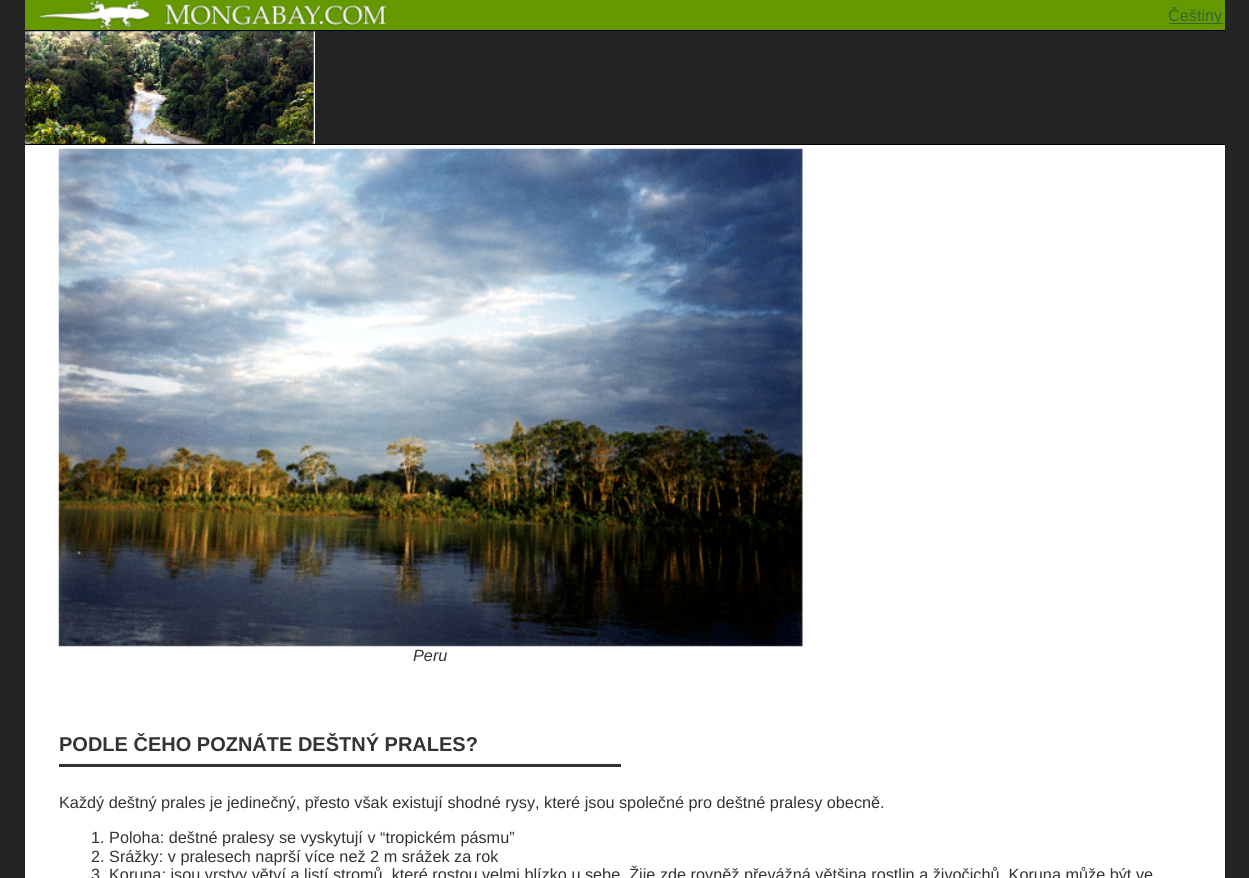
#include <cairo.h>
#include <math.h>
#include <stddef.h>

static cairo_t *ctx;

static void use_color(int r, int g, int b) {
    cairo_set_source_rgb(ctx, r / 255.0, g / 255.0, b / 255.0);
}

static void picture(const char *path, double x, double y, double w, double h) {
    cairo_surface_t *image = cairo_image_surface_create_from_png(path);
    cairo_save(ctx);
    cairo_set_source_surface(ctx, image, x, y);
    cairo_rectangle(ctx, x, y, w, h);
    cairo_fill(ctx);
    cairo_restore(ctx);
    cairo_surface_destroy(image);
}

int main(void) {
    cairo_surface_t *surface = cairo_image_surface_create(CAIRO_FORMAT_RGB24, 1249, 878);
    ctx = cairo_create(surface);
    cairo_font_options_t *options = cairo_font_options_create();
    cairo_font_options_set_hint_metrics(options, CAIRO_HINT_METRICS_OFF);
    cairo_font_options_set_hint_style(options, CAIRO_HINT_STYLE_NONE);
    cairo_set_font_options(ctx, options);
    cairo_set_miter_limit(ctx, 4);
    use_color(36, 36, 36);
    cairo_paint(ctx);
    use_color(102, 153, 0);
    cairo_rectangle(ctx, 25, 0, 1200, 30);
    cairo_fill(ctx);
    picture("img1.png", 37, 0, 350, 30);
    use_color(51, 102, 51);
    cairo_rectangle(ctx, 1169, 23, 54, 1);
    cairo_fill(ctx);
    cairo_select_font_face(ctx, "Liberation Sans", CAIRO_FONT_SLANT_NORMAL, CAIRO_FONT_WEIGHT_NORMAL);
    cairo_set_font_size(ctx, 16.25);
    cairo_move_to(ctx, 1168, 21);
    cairo_show_text(ctx, "Češtiny");
    use_color(0, 0, 0);
    cairo_rectangle(ctx, 25, 30, 1200, 1);
    cairo_fill(ctx);
    picture("img2.png", 25, 31, 290, 113);
    cairo_rectangle(ctx, 25, 144, 1200, 1);
    cairo_fill(ctx);
    use_color(255, 255, 255);
    cairo_rectangle(ctx, 25, 145, 1200, 733);
    cairo_fill(ctx);
    picture("img3.png", 58, 148, 745, 499);
    cairo_select_font_face(ctx, "Liberation Sans", CAIRO_FONT_SLANT_ITALIC, CAIRO_FONT_WEIGHT_NORMAL);
    use_color(51, 51, 51);
    cairo_move_to(ctx, 413, 661);
    cairo_show_text(ctx, "Peru");
    cairo_select_font_face(ctx, "Liberation Sans", CAIRO_FONT_SLANT_NORMAL, CAIRO_FONT_WEIGHT_BOLD);
    cairo_set_font_size(ctx, 20);
    cairo_move_to(ctx, 59, 751);
    cairo_show_text(ctx, "PODLE ČEHO POZNÁTE DEŠTNÝ PRALES?");
    cairo_rectangle(ctx, 59, 764, 562, 3);
    cairo_fill(ctx);
    cairo_select_font_face(ctx, "Liberation Sans", CAIRO_FONT_SLANT_NORMAL, CAIRO_FONT_WEIGHT_NORMAL);
    cairo_set_font_size(ctx, 16.25);
    cairo_move_to(ctx, 59, 808);
    cairo_show_text(ctx, "Každý deštný prales je jedinečný, přesto však existují shodné rysy, které jsou společné pro deštné pralesy obecně.");
    cairo_move_to(ctx, 91, 843);
    cairo_show_text(ctx, "1. Poloha: deštné pralesy se vyskytují v “tropickém pásmu”");
    cairo_move_to(ctx, 91, 862);
    cairo_show_text(ctx, "2. Srážky: v pralesech naprší více než 2 m srážek za rok");
    cairo_move_to(ctx, 91, 880);
    cairo_show_text(ctx, "3");
    cairo_move_to(ctx, 109, 880);
    cairo_show_text(ctx, "Koruna: jsou vrstvy větví a listí stromů, které rostou velmi blízko u sebe. Žije zde rovněž převážná většina rostlin a živočichů. Koruna může být ve");
    cairo_surface_write_to_png(surface, "result.png");
    cairo_font_options_destroy(options);
    cairo_destroy(ctx);
    cairo_surface_destroy(surface);
    return 0;
}
